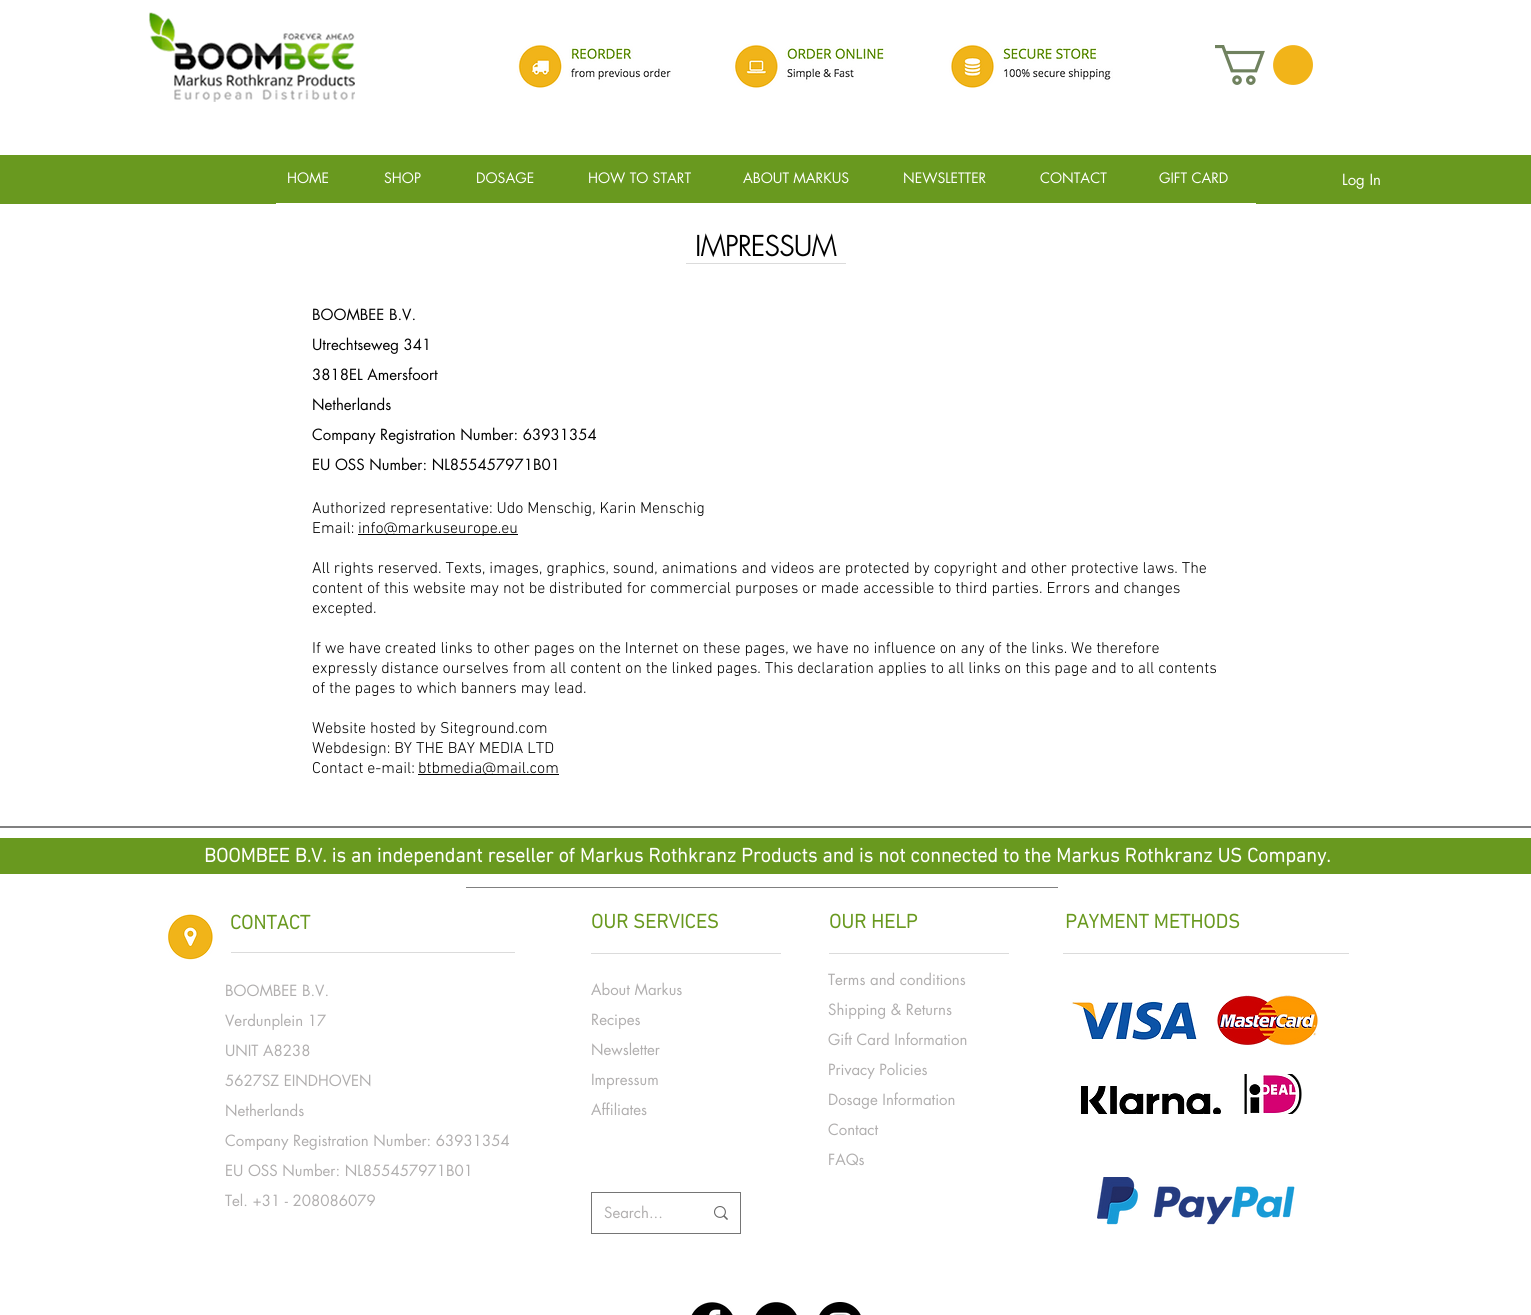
#include <cairo.h>
#include <math.h>
#include <stddef.h>

static cairo_t *ctx;

static void use_color(int r, int g, int b) {
    cairo_set_source_rgb(ctx, r / 255.0, g / 255.0, b / 255.0);
}

static void picture(const char *path, double x, double y, double w, double h) {
    cairo_surface_t *image = cairo_image_surface_create_from_png(path);
    cairo_save(ctx);
    cairo_set_source_surface(ctx, image, x, y);
    cairo_rectangle(ctx, x, y, w, h);
    cairo_fill(ctx);
    cairo_restore(ctx);
    cairo_surface_destroy(image);
}

int main(void) {
    cairo_surface_t *surface = cairo_image_surface_create(CAIRO_FORMAT_RGB24, 1531, 1315);
    ctx = cairo_create(surface);
    cairo_font_options_t *options = cairo_font_options_create();
    cairo_font_options_set_hint_metrics(options, CAIRO_HINT_METRICS_OFF);
    cairo_font_options_set_hint_style(options, CAIRO_HINT_STYLE_NONE);
    cairo_set_font_options(ctx, options);
    cairo_set_miter_limit(ctx, 4);
    use_color(255, 255, 255);
    cairo_paint(ctx);
    picture("img1.png", 149, 12, 206, 90);
    picture("img2.png", 517, 44, 596, 44);
    picture("img3.png", 1215, 45, 98, 40);
    use_color(105, 153, 31);
    cairo_rectangle(ctx, 0, 155, 1531, 49);
    cairo_fill(ctx);
    cairo_select_font_face(ctx, "futura", CAIRO_FONT_SLANT_NORMAL, CAIRO_FONT_WEIGHT_NORMAL);
    cairo_set_font_size(ctx, 14);
    use_color(255, 255, 255);
    cairo_move_to(ctx, 287, 183);
    cairo_show_text(ctx, "HOME");
    cairo_move_to(ctx, 384, 183);
    cairo_show_text(ctx, "SHOP");
    cairo_move_to(ctx, 476, 183);
    cairo_show_text(ctx, "DOSAGE");
    cairo_move_to(ctx, 588, 183);
    cairo_show_text(ctx, "HOW TO START");
    cairo_move_to(ctx, 743, 183);
    cairo_show_text(ctx, "ABOUT MARKUS");
    cairo_move_to(ctx, 903, 183);
    cairo_show_text(ctx, "NEWSLETTER");
    cairo_move_to(ctx, 1040, 183);
    cairo_show_text(ctx, "CONTACT");
    cairo_move_to(ctx, 1159, 183);
    cairo_show_text(ctx, "GIFT CARD");
    cairo_set_font_size(ctx, 15);
    cairo_move_to(ctx, 1342, 185);
    cairo_show_text(ctx, "Log In");
    cairo_rectangle(ctx, 276, 203, 980, 1);
    cairo_fill(ctx);
    cairo_select_font_face(ctx, "futura", CAIRO_FONT_SLANT_NORMAL, CAIRO_FONT_WEIGHT_BOLD);
    cairo_set_font_size(ctx, 27);
    use_color(0, 0, 0);
    cairo_move_to(ctx, 695, 256);
    cairo_show_text(ctx, "IMPRESSUM");
    use_color(219, 219, 219);
    cairo_rectangle(ctx, 686, 263, 160, 1);
    cairo_fill(ctx);
    cairo_select_font_face(ctx, "futura", CAIRO_FONT_SLANT_NORMAL, CAIRO_FONT_WEIGHT_NORMAL);
    cairo_set_font_size(ctx, 15);
    use_color(0, 0, 0);
    cairo_move_to(ctx, 312, 320);
    cairo_show_text(ctx, "BOOMBEE B.V.");
    cairo_move_to(ctx, 312, 350);
    cairo_show_text(ctx, "Utrechtseweg 341");
    cairo_move_to(ctx, 312, 380);
    cairo_show_text(ctx, "3818EL Amersfoort");
    cairo_move_to(ctx, 312, 410);
    cairo_show_text(ctx, "Netherlands");
    cairo_move_to(ctx, 312, 440);
    cairo_show_text(ctx, "Company Registration Number: 63931354");
    cairo_move_to(ctx, 312, 470);
    cairo_show_text(ctx, "EU OSS Number: NL855457971B01");
    cairo_select_font_face(ctx, "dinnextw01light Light", CAIRO_FONT_SLANT_NORMAL, CAIRO_FONT_WEIGHT_NORMAL);
    cairo_set_font_size(ctx, 16);
    cairo_move_to(ctx, 312, 513);
    cairo_show_text(ctx, "Authorized representative: Udo Menschig, Karin Menschig");
    cairo_move_to(ctx, 312, 533);
    cairo_show_text(ctx, "Email:");
    cairo_rectangle(ctx, 358, 534, 160, 1);
    cairo_fill(ctx);
    cairo_move_to(ctx, 358, 533);
    cairo_show_text(ctx, "info@markuseurope.eu");
    cairo_move_to(ctx, 312, 573);
    cairo_show_text(ctx, "All rights reserved. Texts, images, graphics, sound, animations and videos are protected by copyright and other protective laws. The");
    cairo_move_to(ctx, 312, 593);
    cairo_show_text(ctx, "content of this website may not be distributed for commercial purposes or made accessible to third parties. Errors and changes");
    cairo_move_to(ctx, 312, 613);
    cairo_show_text(ctx, "excepted.");
    cairo_move_to(ctx, 312, 653);
    cairo_show_text(ctx, "If we have created links to other pages on the Internet on these pages, we have no influence on any of the links. We therefore");
    cairo_move_to(ctx, 312, 673);
    cairo_show_text(ctx, "expressly distance ourselves from all content on the linked pages. This declaration applies to all links on this page and to all contents");
    cairo_move_to(ctx, 312, 693);
    cairo_show_text(ctx, "of the pages to which banners may lead.");
    cairo_move_to(ctx, 312, 733);
    cairo_show_text(ctx, "Website hosted by Siteground.com");
    cairo_move_to(ctx, 312, 753);
    cairo_show_text(ctx, "Webdesign: BY THE BAY MEDIA LTD");
    cairo_move_to(ctx, 312, 773);
    cairo_show_text(ctx, "Contact e-mail:");
    cairo_rectangle(ctx, 418, 774, 141, 1);
    cairo_fill(ctx);
    cairo_move_to(ctx, 418, 773);
    cairo_show_text(ctx, "btbmedia@mail.com");
    use_color(128, 128, 128);
    cairo_rectangle(ctx, 0, 826, 1531, 2);
    cairo_fill(ctx);
    use_color(105, 153, 31);
    cairo_rectangle(ctx, 0, 838, 1531, 36);
    cairo_fill(ctx);
    cairo_select_font_face(ctx, "dinnextw01light", CAIRO_FONT_SLANT_NORMAL, CAIRO_FONT_WEIGHT_BOLD);
    cairo_set_font_size(ctx, 20);
    use_color(255, 255, 255);
    cairo_move_to(ctx, 204, 862);
    cairo_show_text(ctx, "BOOMBEE B.V. is an independant reseller of Markus Rothkranz Products and is not connected to the Markus Rothkranz US Company.");
    picture("img4.png", 168, 914, 45, 46);
    use_color(105, 153, 31);
    cairo_move_to(ctx, 230, 929);
    cairo_show_text(ctx, "CONTACT");
    cairo_move_to(ctx, 591, 928);
    cairo_show_text(ctx, "OUR SERVICES");
    cairo_move_to(ctx, 829, 928);
    cairo_show_text(ctx, "OUR HELP");
    cairo_move_to(ctx, 1065, 928);
    cairo_show_text(ctx, "PAYMENT METHODS");
    use_color(219, 219, 219);
    cairo_rectangle(ctx, 231, 952, 284, 1);
    cairo_fill(ctx);
    cairo_rectangle(ctx, 591, 953, 190, 1);
    cairo_fill(ctx);
    cairo_rectangle(ctx, 829, 953, 180, 1);
    cairo_fill(ctx);
    cairo_rectangle(ctx, 1063, 953, 286, 1);
    cairo_fill(ctx);
    cairo_select_font_face(ctx, "futura", CAIRO_FONT_SLANT_NORMAL, CAIRO_FONT_WEIGHT_NORMAL);
    cairo_set_font_size(ctx, 15);
    use_color(176, 174, 174);
    cairo_move_to(ctx, 225, 996);
    cairo_show_text(ctx, "BOOMBEE B.V.");
    cairo_move_to(ctx, 225, 1026);
    cairo_show_text(ctx, "Verdunplein 17");
    cairo_move_to(ctx, 225, 1056);
    cairo_show_text(ctx, "UNIT A8238");
    cairo_move_to(ctx, 225, 1086);
    cairo_show_text(ctx, "5627SZ EINDHOVEN");
    cairo_move_to(ctx, 225, 1116);
    cairo_show_text(ctx, "Netherlands");
    cairo_move_to(ctx, 225, 1146);
    cairo_show_text(ctx, "Company Registration Number: 63931354");
    cairo_move_to(ctx, 225, 1176);
    cairo_show_text(ctx, "EU OSS Number: NL855457971B01");
    cairo_move_to(ctx, 225, 1206);
    cairo_show_text(ctx, "Tel. +31 - 208086079");
    cairo_move_to(ctx, 591, 995);
    cairo_show_text(ctx, "About Markus");
    cairo_move_to(ctx, 591, 1025);
    cairo_show_text(ctx, "Recipes");
    cairo_move_to(ctx, 591, 1055);
    cairo_show_text(ctx, "Newsletter");
    cairo_move_to(ctx, 591, 1085);
    cairo_show_text(ctx, "Impressum");
    cairo_move_to(ctx, 591, 1115);
    cairo_show_text(ctx, "Affiliates");
    picture("img5.png", 1071, 995, 248, 51);
    picture("img6.png", 1081, 1086, 140, 28);
    picture("img7.png", 1097, 1177, 198, 48);
    picture("img8.png", 691, 1302, 42, 13);
    picture("img9.png", 755, 1302, 42, 13);
    picture("img10.png", 819, 1302, 42, 13);
    use_color(128, 128, 128);
    cairo_rectangle(ctx, 466, 887, 592, 1);
    cairo_fill(ctx);
    use_color(176, 174, 174);
    cairo_move_to(ctx, 828, 985);
    cairo_show_text(ctx, "Terms and conditions");
    cairo_move_to(ctx, 828, 1015);
    cairo_show_text(ctx, "Shipping & Returns");
    cairo_move_to(ctx, 828, 1045);
    cairo_show_text(ctx, "Gift Card Information");
    cairo_move_to(ctx, 828, 1075);
    cairo_show_text(ctx, "Privacy Policies");
    cairo_move_to(ctx, 828, 1105);
    cairo_show_text(ctx, "Dosage Information");
    cairo_move_to(ctx, 828, 1135);
    cairo_show_text(ctx, "Contact");
    cairo_move_to(ctx, 828, 1165);
    cairo_show_text(ctx, "FAQs");
    picture("img11.png", 1244, 1074, 58, 40);
    cairo_rectangle(ctx, 591.5, 1192.5, 149, 41);
    use_color(117, 117, 117);
    cairo_set_line_width(ctx, 1);
    cairo_stroke(ctx);
    use_color(176, 174, 174);
    cairo_move_to(ctx, 604, 1218);
    cairo_show_text(ctx, "Search...");
    picture("img12.png", 714, 1206, 14, 14);
    cairo_surface_write_to_png(surface, "result.png");
    cairo_font_options_destroy(options);
    cairo_destroy(ctx);
    cairo_surface_destroy(surface);
    return 0;
}
